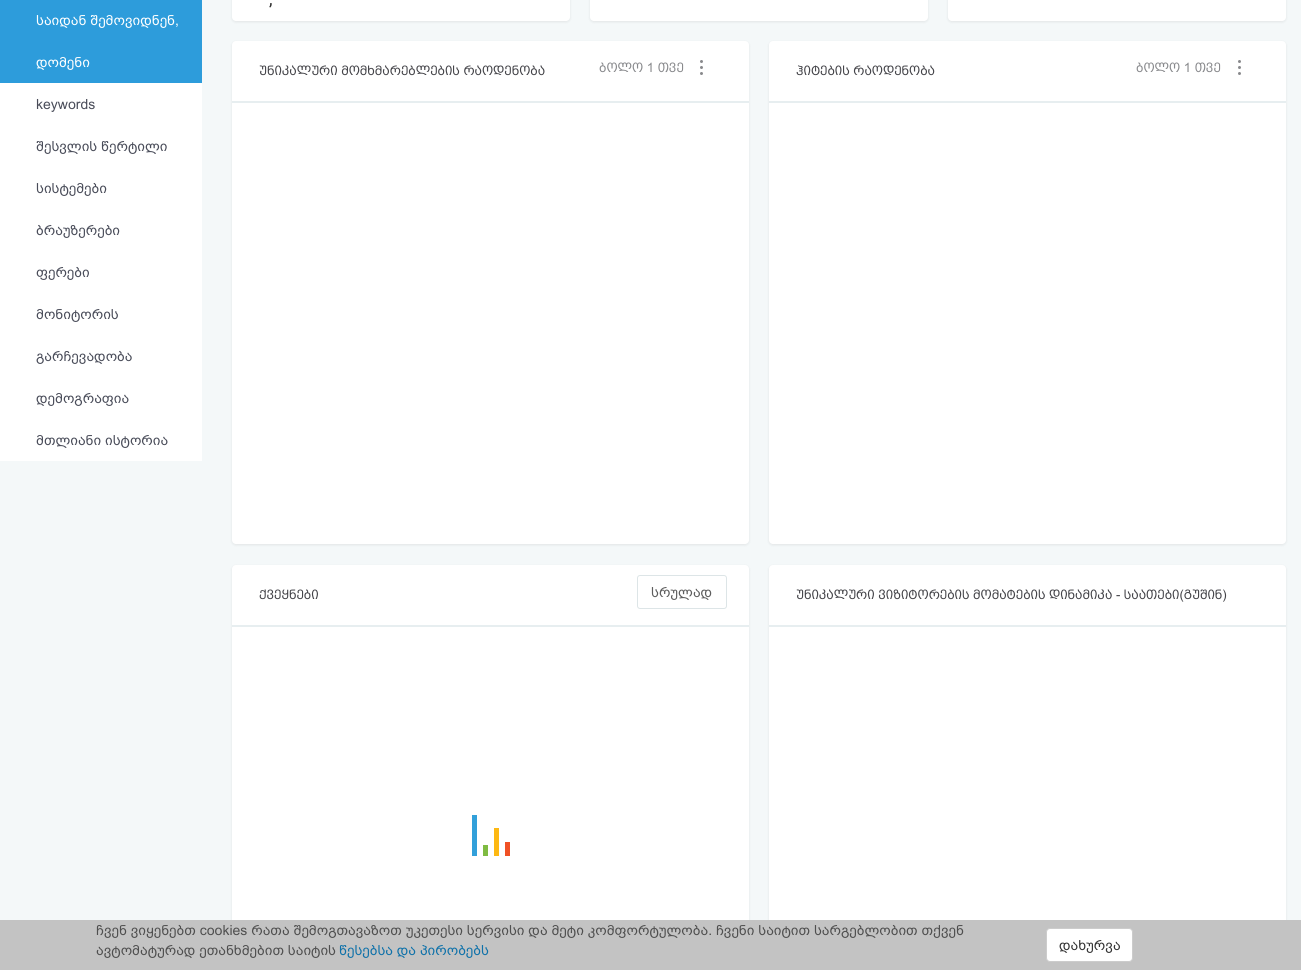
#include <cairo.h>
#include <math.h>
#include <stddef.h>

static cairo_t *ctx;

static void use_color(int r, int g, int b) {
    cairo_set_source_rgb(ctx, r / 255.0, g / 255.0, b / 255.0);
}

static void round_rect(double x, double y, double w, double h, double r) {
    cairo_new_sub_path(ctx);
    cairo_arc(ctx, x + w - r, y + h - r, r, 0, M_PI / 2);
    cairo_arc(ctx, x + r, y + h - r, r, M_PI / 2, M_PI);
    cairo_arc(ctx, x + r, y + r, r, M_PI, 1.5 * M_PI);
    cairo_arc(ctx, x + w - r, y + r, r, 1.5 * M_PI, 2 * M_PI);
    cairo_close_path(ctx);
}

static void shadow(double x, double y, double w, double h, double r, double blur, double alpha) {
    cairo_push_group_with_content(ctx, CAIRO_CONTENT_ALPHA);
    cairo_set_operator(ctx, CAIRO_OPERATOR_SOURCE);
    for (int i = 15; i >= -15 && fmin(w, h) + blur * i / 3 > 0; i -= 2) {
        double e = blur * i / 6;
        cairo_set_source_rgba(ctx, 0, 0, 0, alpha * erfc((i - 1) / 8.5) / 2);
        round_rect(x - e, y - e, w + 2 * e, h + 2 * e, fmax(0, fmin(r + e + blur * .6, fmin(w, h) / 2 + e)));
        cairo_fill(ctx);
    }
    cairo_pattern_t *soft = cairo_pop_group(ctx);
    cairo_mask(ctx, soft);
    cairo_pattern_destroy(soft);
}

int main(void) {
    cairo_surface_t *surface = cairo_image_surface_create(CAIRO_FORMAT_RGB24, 1301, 970);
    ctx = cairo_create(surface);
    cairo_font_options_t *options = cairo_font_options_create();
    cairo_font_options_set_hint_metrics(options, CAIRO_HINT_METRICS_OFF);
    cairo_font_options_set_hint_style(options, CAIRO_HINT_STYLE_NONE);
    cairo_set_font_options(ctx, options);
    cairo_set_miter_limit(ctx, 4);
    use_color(244, 248, 249);
    cairo_paint(ctx);
    use_color(255, 255, 255);
    cairo_rectangle(ctx, 0, 83, 202, 378);
    cairo_fill(ctx);
    use_color(45, 156, 219);
    cairo_rectangle(ctx, 0, 0, 202, 83);
    cairo_fill(ctx);
    cairo_select_font_face(ctx, "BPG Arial", CAIRO_FONT_SLANT_NORMAL, CAIRO_FONT_WEIGHT_NORMAL);
    cairo_set_font_size(ctx, 14);
    use_color(255, 255, 255);
    cairo_move_to(ctx, 36, 25);
    cairo_show_text(ctx, "საიდან შემოვიდნენ,");
    cairo_move_to(ctx, 36, 67);
    cairo_show_text(ctx, "დომენი");
    use_color(73, 76, 89);
    cairo_move_to(ctx, 36, 109);
    cairo_show_text(ctx, "keywords");
    cairo_move_to(ctx, 36, 151);
    cairo_show_text(ctx, "შესვლის წერტილი");
    cairo_move_to(ctx, 36, 193);
    cairo_show_text(ctx, "სისტემები");
    cairo_move_to(ctx, 36, 235);
    cairo_show_text(ctx, "ბრაუზერები");
    cairo_move_to(ctx, 36, 277);
    cairo_show_text(ctx, "ფერები");
    cairo_move_to(ctx, 36, 319);
    cairo_show_text(ctx, "მონიტორის");
    cairo_move_to(ctx, 36, 361);
    cairo_show_text(ctx, "გარჩევადობა");
    cairo_move_to(ctx, 36, 403);
    cairo_show_text(ctx, "დემოგრაფია");
    cairo_move_to(ctx, 36, 445);
    cairo_show_text(ctx, "მთლიანი ისტორია");
    use_color(0, 0, 0);
    shadow(232, -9, 338, 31, 4, 1.5, 0.08);
    use_color(255, 255, 255);
    round_rect(232, -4, 338, 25, 4);
    cairo_fill(ctx);
    cairo_select_font_face(ctx, "Roboto", CAIRO_FONT_SLANT_NORMAL, CAIRO_FONT_WEIGHT_NORMAL);
    cairo_set_font_size(ctx, 18);
    use_color(51, 51, 51);
    cairo_move_to(ctx, 269, 5);
    cairo_show_text(ctx, ",");
    use_color(0, 0, 0);
    shadow(590, -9, 338, 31, 4, 1.5, 0.08);
    use_color(255, 255, 255);
    round_rect(590, -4, 338, 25, 4);
    cairo_fill(ctx);
    use_color(0, 0, 0);
    shadow(948, -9, 338, 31, 4, 1.5, 0.08);
    use_color(255, 255, 255);
    round_rect(948, -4, 338, 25, 4);
    cairo_fill(ctx);
    use_color(0, 0, 0);
    shadow(232, 42, 517, 503, 4, 1.5, 0.08);
    use_color(255, 255, 255);
    round_rect(232, 41, 517, 503, 4);
    cairo_fill(ctx);
    use_color(231, 238, 240);
    cairo_rectangle(ctx, 232, 101, 517, 2);
    cairo_fill(ctx);
    cairo_select_font_face(ctx, "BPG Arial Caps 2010", CAIRO_FONT_SLANT_NORMAL, CAIRO_FONT_WEIGHT_NORMAL);
    cairo_set_font_size(ctx, 13);
    use_color(67, 67, 72);
    cairo_move_to(ctx, 259, 75);
    cairo_show_text(ctx, "უნიკალური მომხმარებლების რაოდენობა");
    use_color(136, 137, 140);
    cairo_new_path(ctx);
    cairo_arc(ctx, 701.5, 61.5, 1.5, 0, 2 * M_PI);
    cairo_fill(ctx);
    cairo_arc(ctx, 701.5, 67.5, 1.5, 0, 2 * M_PI);
    cairo_fill(ctx);
    cairo_arc(ctx, 701.5, 73.5, 1.5, 0, 2 * M_PI);
    cairo_fill(ctx);
    cairo_move_to(ctx, 599, 72);
    cairo_show_text(ctx, "ბოლო 1 თვე");
    use_color(0, 0, 0);
    shadow(769, 42, 517, 503, 4, 1.5, 0.08);
    use_color(255, 255, 255);
    round_rect(769, 41, 517, 503, 4);
    cairo_fill(ctx);
    use_color(231, 238, 240);
    cairo_rectangle(ctx, 769, 101, 517, 2);
    cairo_fill(ctx);
    use_color(67, 67, 72);
    cairo_move_to(ctx, 796, 75);
    cairo_show_text(ctx, "ჰიტების რაოდენობა");
    use_color(136, 137, 140);
    cairo_new_path(ctx);
    cairo_arc(ctx, 1239.5, 61.5, 1.5, 0, 2 * M_PI);
    cairo_fill(ctx);
    cairo_arc(ctx, 1239.5, 67.5, 1.5, 0, 2 * M_PI);
    cairo_fill(ctx);
    cairo_arc(ctx, 1239.5, 73.5, 1.5, 0, 2 * M_PI);
    cairo_fill(ctx);
    cairo_move_to(ctx, 1136, 72);
    cairo_show_text(ctx, "ბოლო 1 თვე");
    use_color(0, 0, 0);
    shadow(232, 566, 517, 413, 4, 1.5, 0.08);
    use_color(255, 255, 255);
    round_rect(232, 565, 517, 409, 4);
    cairo_fill(ctx);
    use_color(231, 238, 240);
    cairo_rectangle(ctx, 232, 625, 517, 2);
    cairo_fill(ctx);
    use_color(67, 67, 72);
    cairo_move_to(ctx, 259, 599);
    cairo_show_text(ctx, "ქვეყნები");
    round_rect(637.5, 575.5, 89, 33, 2.5);
    use_color(221, 229, 231);
    cairo_set_line_width(ctx, 1);
    cairo_stroke(ctx);
    cairo_select_font_face(ctx, "BPG Arial", CAIRO_FONT_SLANT_NORMAL, CAIRO_FONT_WEIGHT_NORMAL);
    cairo_set_font_size(ctx, 14);
    use_color(93, 93, 93);
    cairo_move_to(ctx, 651, 597);
    cairo_show_text(ctx, "სრულად");
    use_color(240, 81, 37);
    cairo_rectangle(ctx, 505, 842, 5, 14);
    cairo_fill(ctx);
    use_color(253, 184, 19);
    cairo_rectangle(ctx, 494, 828, 5, 28);
    cairo_fill(ctx);
    use_color(127, 187, 66);
    cairo_rectangle(ctx, 483, 845, 5, 11);
    cairo_fill(ctx);
    use_color(50, 160, 218);
    cairo_rectangle(ctx, 472, 815, 5, 41);
    cairo_fill(ctx);
    use_color(0, 0, 0);
    shadow(769, 566, 517, 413, 4, 1.5, 0.08);
    use_color(255, 255, 255);
    round_rect(769, 565, 517, 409, 4);
    cairo_fill(ctx);
    use_color(231, 238, 240);
    cairo_rectangle(ctx, 769, 625, 517, 2);
    cairo_fill(ctx);
    cairo_select_font_face(ctx, "BPG Arial Caps 2010", CAIRO_FONT_SLANT_NORMAL, CAIRO_FONT_WEIGHT_NORMAL);
    cairo_set_font_size(ctx, 13);
    use_color(67, 67, 72);
    cairo_move_to(ctx, 796, 599);
    cairo_show_text(ctx, "უნიკალური ვიზიტორების მომატების დინამიკა - საათები(გუშინ)");
    use_color(195, 195, 195);
    cairo_rectangle(ctx, 0, 920, 1301, 50);
    cairo_fill(ctx);
    cairo_select_font_face(ctx, "BPG Arial", CAIRO_FONT_SLANT_NORMAL, CAIRO_FONT_WEIGHT_NORMAL);
    cairo_set_font_size(ctx, 14);
    use_color(79, 79, 79);
    cairo_move_to(ctx, 96, 935);
    cairo_show_text(ctx, "ჩვენ ვიყენებთ cookies რათა შემოგთავაზოთ უკეთესი სერვისი და მეტი კომფორტულობა. ჩვენი საიტით სარგებლობით თქვენ");
    cairo_move_to(ctx, 96, 955);
    cairo_show_text(ctx, "ავტომატურად ეთანხმებით საიტის");
    use_color(14, 113, 169);
    cairo_move_to(ctx, 339, 955);
    cairo_show_text(ctx, "წესებსა და პირობებს");
    use_color(255, 255, 255);
    round_rect(1046.5, 928.5, 86, 33, 3.5);
    cairo_fill_preserve(ctx);
    use_color(204, 204, 204);
    cairo_stroke(ctx);
    use_color(51, 51, 51);
    cairo_move_to(ctx, 1059, 950);
    cairo_show_text(ctx, "დახურვა");
    cairo_surface_write_to_png(surface, "result.png");
    cairo_font_options_destroy(options);
    cairo_destroy(ctx);
    cairo_surface_destroy(surface);
    return 0;
}
